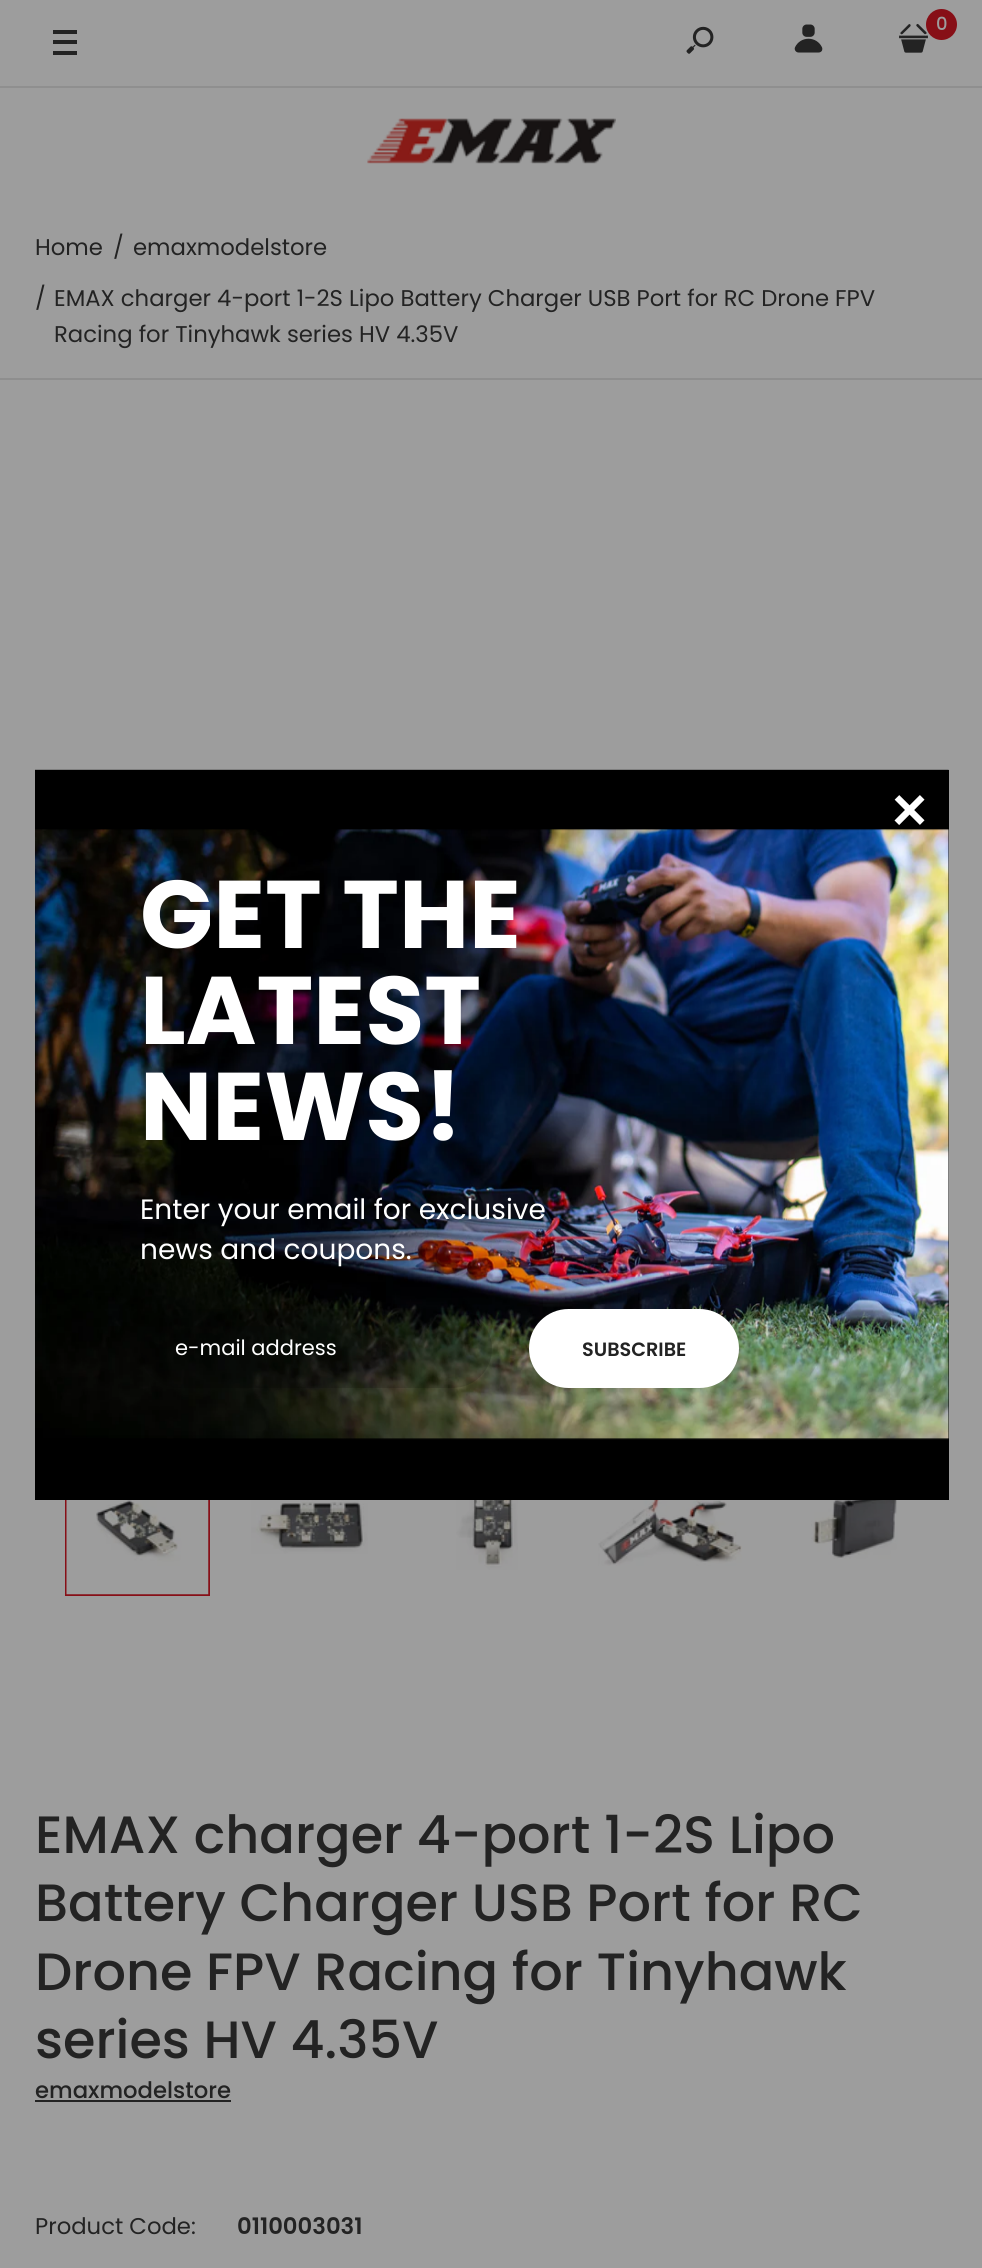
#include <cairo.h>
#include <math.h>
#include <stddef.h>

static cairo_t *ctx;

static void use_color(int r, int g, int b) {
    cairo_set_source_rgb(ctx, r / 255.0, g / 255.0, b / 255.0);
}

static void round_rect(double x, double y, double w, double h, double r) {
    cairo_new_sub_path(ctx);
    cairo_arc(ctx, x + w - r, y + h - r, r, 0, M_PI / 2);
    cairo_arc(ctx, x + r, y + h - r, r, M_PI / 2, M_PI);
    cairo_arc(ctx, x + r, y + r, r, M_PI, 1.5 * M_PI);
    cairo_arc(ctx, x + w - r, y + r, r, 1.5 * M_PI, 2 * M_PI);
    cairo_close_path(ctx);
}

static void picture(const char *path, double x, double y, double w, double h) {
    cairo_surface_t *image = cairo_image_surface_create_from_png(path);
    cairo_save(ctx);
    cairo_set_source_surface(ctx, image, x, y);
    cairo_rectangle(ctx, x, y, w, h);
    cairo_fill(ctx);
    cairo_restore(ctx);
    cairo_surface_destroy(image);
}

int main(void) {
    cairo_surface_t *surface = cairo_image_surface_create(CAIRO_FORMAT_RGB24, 982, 2268);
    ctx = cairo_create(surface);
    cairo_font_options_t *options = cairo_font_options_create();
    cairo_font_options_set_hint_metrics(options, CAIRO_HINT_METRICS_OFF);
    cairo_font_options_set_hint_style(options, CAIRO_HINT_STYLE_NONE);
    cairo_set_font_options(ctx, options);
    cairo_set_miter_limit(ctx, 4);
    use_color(157, 157, 157);
    cairo_paint(ctx);
    use_color(143, 143, 143);
    cairo_rectangle(ctx, 0, 86, 982, 2);
    cairo_fill(ctx);
    use_color(35, 35, 35);
    cairo_rectangle(ctx, 53, 40, 24, 4);
    cairo_fill(ctx);
    cairo_rectangle(ctx, 53, 30, 24, 4);
    cairo_fill(ctx);
    cairo_rectangle(ctx, 53, 51, 24, 4);
    cairo_fill(ctx);
    picture("img1.png", 686, 26, 28, 28);
    picture("img2.png", 794, 24, 29, 29);
    picture("img3.png", 899, 23, 29, 30);
    use_color(135, 15, 23);
    cairo_arc(ctx, 941.5, 24.5, 15.5, 0, 2 * M_PI);
    cairo_fill(ctx);
    cairo_select_font_face(ctx, "Poppins Medium", CAIRO_FONT_SLANT_NORMAL, CAIRO_FONT_WEIGHT_NORMAL);
    cairo_set_font_size(ctx, 18);
    use_color(157, 157, 157);
    cairo_move_to(ctx, 936, 30);
    cairo_show_text(ctx, "0");
    picture("img4.png", 367, 118, 249, 46);
    use_color(142, 142, 142);
    cairo_rectangle(ctx, 0, 378, 982, 2);
    cairo_fill(ctx);
    cairo_select_font_face(ctx, "Poppins", CAIRO_FONT_SLANT_NORMAL, CAIRO_FONT_WEIGHT_NORMAL);
    cairo_set_font_size(ctx, 22.75);
    use_color(35, 35, 35);
    cairo_move_to(ctx, 35, 255);
    cairo_show_text(ctx, "Home");
    cairo_move_to(ctx, 113, 255);
    cairo_show_text(ctx, "/");
    cairo_move_to(ctx, 133, 255);
    cairo_show_text(ctx, "emaxmodelstore");
    cairo_move_to(ctx, 35, 306);
    cairo_show_text(ctx, "/");
    cairo_move_to(ctx, 54, 306);
    cairo_show_text(ctx, "EMAX charger 4-port 1-2S Lipo Battery Charger USB Port for RC Drone FPV");
    cairo_move_to(ctx, 54, 342);
    cairo_show_text(ctx, "Racing for Tinyhawk series HV 4.35V");
    cairo_rectangle(ctx, 66, 1452, 143, 143);
    use_color(135, 15, 23);
    cairo_stroke(ctx);
    picture("img5.png", 66, 1500, 143, 95);
    picture("img6.png", 251, 1500, 117, 54);
    picture("img7.png", 456, 1500, 62, 70);
    picture("img8.png", 598, 1500, 144, 66);
    picture("img9.png", 811, 1500, 87, 59);
    cairo_select_font_face(ctx, "Poppins Medium", CAIRO_FONT_SLANT_NORMAL, CAIRO_FONT_WEIGHT_NORMAL);
    cairo_set_font_size(ctx, 52.5);
    use_color(35, 35, 35);
    cairo_move_to(ctx, 35, 1853);
    cairo_show_text(ctx, "EMAX charger 4-port 1-2S Lipo");
    cairo_move_to(ctx, 35, 1921);
    cairo_show_text(ctx, "Battery Charger USB Port for RC");
    cairo_move_to(ctx, 35, 1990);
    cairo_show_text(ctx, "Drone FPV Racing for Tinyhawk");
    cairo_move_to(ctx, 35, 2058);
    cairo_show_text(ctx, "series HV 4.35V");
    cairo_set_font_size(ctx, 22.75);
    cairo_move_to(ctx, 35, 2098);
    cairo_show_text(ctx, "emaxmodelstore");
    cairo_rectangle(ctx, 35, 2100, 196, 2);
    cairo_fill(ctx);
    cairo_select_font_face(ctx, "Poppins", CAIRO_FONT_SLANT_NORMAL, CAIRO_FONT_WEIGHT_NORMAL);
    cairo_move_to(ctx, 35, 2234);
    cairo_show_text(ctx, "Product Code:");
    cairo_select_font_face(ctx, "Poppins SemiBold", CAIRO_FONT_SLANT_NORMAL, CAIRO_FONT_WEIGHT_NORMAL);
    cairo_move_to(ctx, 237, 2234);
    cairo_show_text(ctx, "0110003031");
    use_color(0, 0, 0);
    cairo_rectangle(ctx, 35, 770, 914, 730);
    cairo_fill(ctx);
    picture("img10.png", 35, 769, 914, 671);
    cairo_select_font_face(ctx, "Liberation Sans", CAIRO_FONT_SLANT_NORMAL, CAIRO_FONT_WEIGHT_BOLD);
    cairo_set_font_size(ctx, 60);
    use_color(255, 255, 255);
    cairo_move_to(ctx, 892, 830);
    cairo_show_text(ctx, "×");
    cairo_select_font_face(ctx, "Poppins", CAIRO_FONT_SLANT_NORMAL, CAIRO_FONT_WEIGHT_BOLD);
    cairo_set_font_size(ctx, 96);
    cairo_move_to(ctx, 140, 948);
    cairo_show_text(ctx, "GET THE");
    cairo_move_to(ctx, 140, 1044);
    cairo_show_text(ctx, "LATEST");
    cairo_move_to(ctx, 140, 1140);
    cairo_show_text(ctx, "NEWS!");
    cairo_select_font_face(ctx, "Poppins", CAIRO_FONT_SLANT_NORMAL, CAIRO_FONT_WEIGHT_NORMAL);
    cairo_set_font_size(ctx, 28);
    cairo_move_to(ctx, 140, 1219);
    cairo_show_text(ctx, "Enter your email for exclusive");
    cairo_move_to(ctx, 140, 1259);
    cairo_show_text(ctx, "news and coupons.");
    cairo_set_source_rgba(ctx, 0, 0, 0, 0.16);
    round_rect(140, 1309, 352, 79, 39.5);
    cairo_fill(ctx);
    cairo_set_font_size(ctx, 21);
    use_color(255, 255, 255);
    cairo_move_to(ctx, 175, 1355);
    cairo_show_text(ctx, "e-mail address");
    round_rect(529, 1309, 210, 79, 39.5);
    cairo_fill(ctx);
    cairo_select_font_face(ctx, "Poppins SemiBold", CAIRO_FONT_SLANT_NORMAL, CAIRO_FONT_WEIGHT_NORMAL);
    cairo_set_font_size(ctx, 19.25);
    use_color(35, 35, 35);
    cairo_move_to(ctx, 582, 1356);
    cairo_show_text(ctx, "SUBSCRIBE");
    cairo_surface_write_to_png(surface, "result.png");
    cairo_font_options_destroy(options);
    cairo_destroy(ctx);
    cairo_surface_destroy(surface);
    return 0;
}
